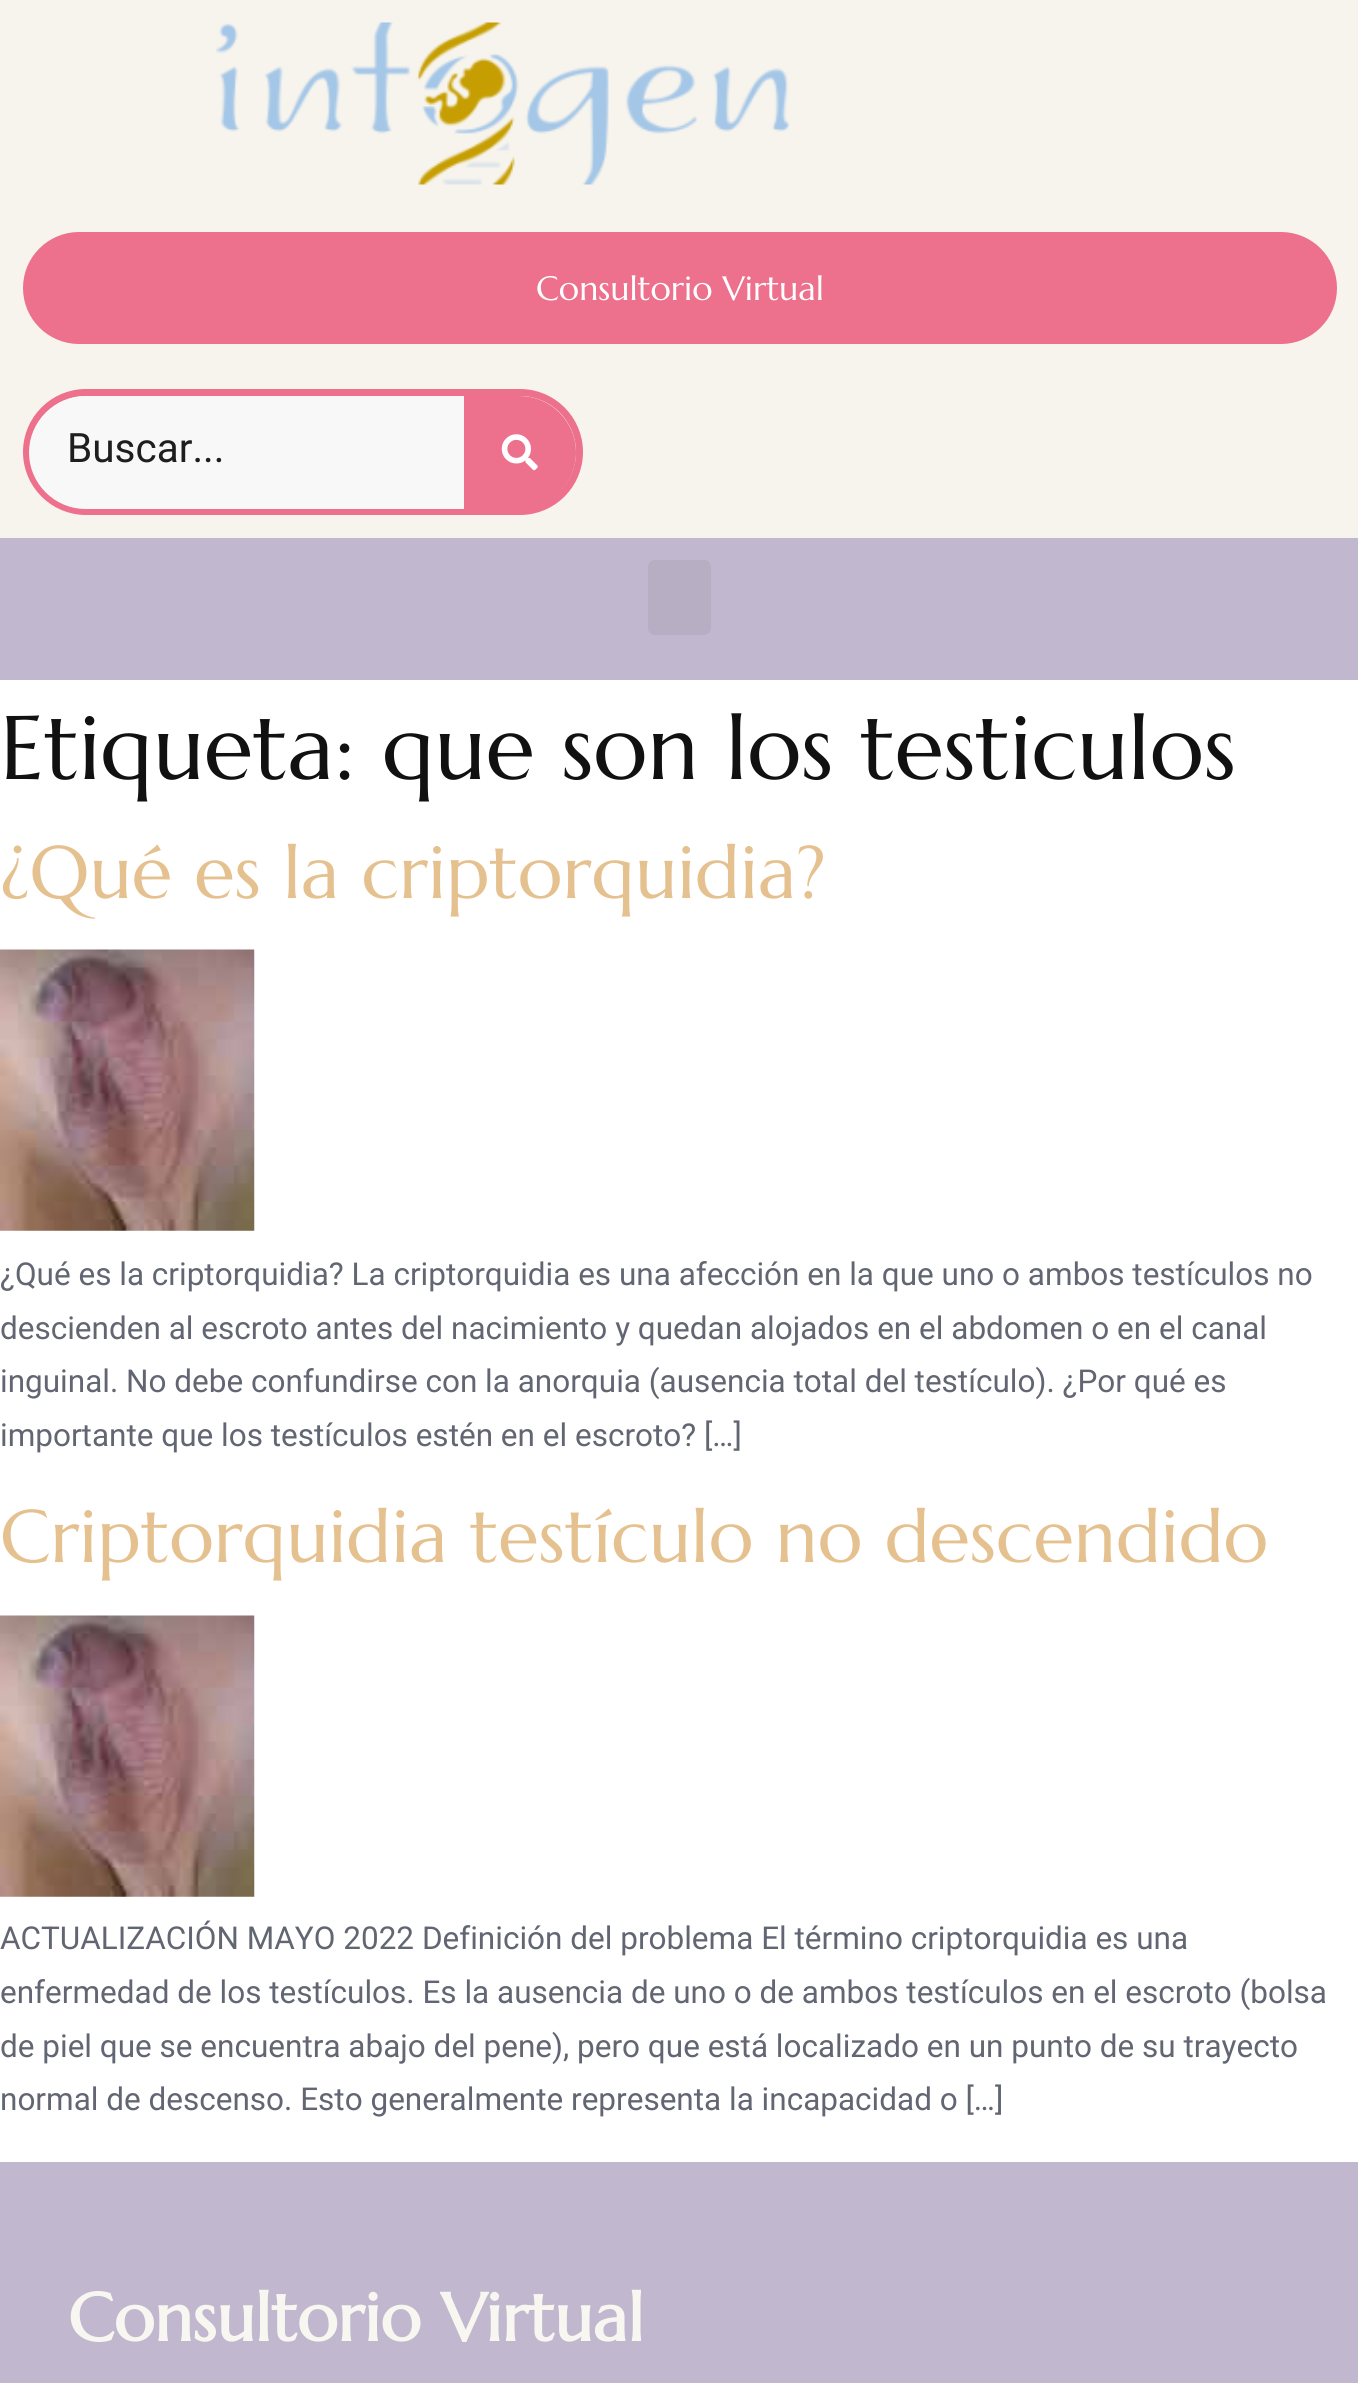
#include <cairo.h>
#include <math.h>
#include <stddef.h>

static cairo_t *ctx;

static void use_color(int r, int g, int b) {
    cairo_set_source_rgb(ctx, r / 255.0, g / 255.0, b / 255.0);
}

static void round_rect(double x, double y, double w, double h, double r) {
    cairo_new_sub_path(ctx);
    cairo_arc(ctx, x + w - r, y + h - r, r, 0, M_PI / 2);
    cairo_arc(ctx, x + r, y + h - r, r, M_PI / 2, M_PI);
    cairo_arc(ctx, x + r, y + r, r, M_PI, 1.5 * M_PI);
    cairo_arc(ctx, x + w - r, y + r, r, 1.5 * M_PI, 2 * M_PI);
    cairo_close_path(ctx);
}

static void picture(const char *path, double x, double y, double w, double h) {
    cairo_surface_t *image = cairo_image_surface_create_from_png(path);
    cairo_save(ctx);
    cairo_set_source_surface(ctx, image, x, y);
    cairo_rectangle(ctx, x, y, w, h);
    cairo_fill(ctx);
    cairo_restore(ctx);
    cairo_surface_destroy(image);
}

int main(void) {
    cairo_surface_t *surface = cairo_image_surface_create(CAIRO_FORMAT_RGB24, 1358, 2383);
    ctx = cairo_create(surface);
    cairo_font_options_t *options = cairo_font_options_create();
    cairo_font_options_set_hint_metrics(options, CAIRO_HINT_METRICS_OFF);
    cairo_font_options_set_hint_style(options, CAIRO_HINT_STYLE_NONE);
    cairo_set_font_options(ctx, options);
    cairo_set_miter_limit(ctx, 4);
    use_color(255, 255, 255);
    cairo_paint(ctx);
    use_color(247, 244, 237);
    cairo_rectangle(ctx, 0, 0, 1358, 538);
    cairo_fill(ctx);
    picture("img1.png", 216, 22, 574, 163);
    use_color(237, 112, 141);
    round_rect(23, 232, 1314, 112, 56);
    cairo_fill(ctx);
    cairo_select_font_face(ctx, "Marcellus", CAIRO_FONT_SLANT_NORMAL, CAIRO_FONT_WEIGHT_NORMAL);
    cairo_set_font_size(ctx, 33.75);
    use_color(255, 255, 255);
    cairo_move_to(ctx, 536, 300);
    cairo_show_text(ctx, "Consultorio Virtual");
    use_color(241, 242, 243);
    round_rect(26.5, 392.5, 553, 119, 59.5);
    cairo_fill_preserve(ctx);
    use_color(237, 112, 141);
    cairo_set_line_width(ctx, 7);
    cairo_stroke(ctx);
    use_color(248, 248, 248);
    cairo_new_path(ctx);
    cairo_move_to(ctx, 85.5, 396);
    cairo_line_to(ctx, 464, 396);
    cairo_line_to(ctx, 464, 509);
    cairo_line_to(ctx, 85.5, 509);
    cairo_curve_to(ctx, 54.5, 509, 29, 483.5, 29, 452.5);
    cairo_curve_to(ctx, 29, 421.5, 54.5, 396, 85.5, 396);
    cairo_close_path(ctx);
    cairo_fill(ctx);
    cairo_select_font_face(ctx, "Roboto", CAIRO_FONT_SLANT_NORMAL, CAIRO_FONT_WEIGHT_NORMAL);
    cairo_set_font_size(ctx, 40.5);
    use_color(30, 30, 30);
    cairo_move_to(ctx, 67, 462);
    cairo_show_text(ctx, "Buscar...");
    use_color(237, 112, 141);
    cairo_new_path(ctx);
    cairo_move_to(ctx, 464, 396);
    cairo_line_to(ctx, 519.5, 396);
    cairo_curve_to(ctx, 550.5, 396, 576, 421.5, 576, 452.5);
    cairo_curve_to(ctx, 576, 483.5, 550.5, 509, 519.5, 509);
    cairo_line_to(ctx, 464, 509);
    cairo_close_path(ctx);
    cairo_fill(ctx);
    picture("img2.png", 501, 434, 37, 37);
    use_color(193, 183, 206);
    cairo_rectangle(ctx, 0, 538, 1358, 142);
    cairo_fill(ctx);
    use_color(183, 174, 196);
    round_rect(648, 560, 63, 75, 7);
    cairo_fill(ctx);
    cairo_select_font_face(ctx, "Marcellus", CAIRO_FONT_SLANT_NORMAL, CAIRO_FONT_WEIGHT_NORMAL);
    cairo_set_font_size(ctx, 90);
    use_color(17, 17, 17);
    cairo_move_to(ctx, 0, 779);
    cairo_show_text(ctx, "Etiqueta: que son los testiculos");
    cairo_set_font_size(ctx, 74.25);
    use_color(229, 193, 143);
    cairo_move_to(ctx, 0, 898);
    cairo_show_text(ctx, "¿Qué es la criptorquidia?");
    picture("img3.png", 0, 949, 255, 282);
    cairo_select_font_face(ctx, "Roboto", CAIRO_FONT_SLANT_NORMAL, CAIRO_FONT_WEIGHT_NORMAL);
    cairo_set_font_size(ctx, 31.5);
    use_color(98, 102, 114);
    cairo_move_to(ctx, 0, 1285);
    cairo_show_text(ctx, "¿Qué es la criptorquidia? La criptorquidia es una afección en la que uno o ambos testículos no");
    cairo_move_to(ctx, 0, 1339);
    cairo_show_text(ctx, "descienden al escroto antes del nacimiento y quedan alojados en el abdomen o en el canal");
    cairo_move_to(ctx, 0, 1392);
    cairo_show_text(ctx, "inguinal. No debe confundirse con la anorquia (ausencia total del testículo). ¿Por qué es");
    cairo_move_to(ctx, 0, 1446);
    cairo_show_text(ctx, "importante que los testículos estén en el escroto? […]");
    cairo_select_font_face(ctx, "Marcellus", CAIRO_FONT_SLANT_NORMAL, CAIRO_FONT_WEIGHT_NORMAL);
    cairo_set_font_size(ctx, 74.25);
    use_color(229, 193, 143);
    cairo_move_to(ctx, 0, 1562);
    cairo_show_text(ctx, "Criptorquidia testículo no descendido");
    picture("img4.png", 0, 1615, 255, 282);
    cairo_select_font_face(ctx, "Roboto", CAIRO_FONT_SLANT_NORMAL, CAIRO_FONT_WEIGHT_NORMAL);
    cairo_set_font_size(ctx, 31.5);
    use_color(98, 102, 114);
    cairo_move_to(ctx, 0, 1949);
    cairo_show_text(ctx, "ACTUALIZACIÓN MAYO 2022 Definición del problema El término criptorquidia es una");
    cairo_move_to(ctx, 0, 2003);
    cairo_show_text(ctx, "enfermedad de los testículos. Es la ausencia de uno o de ambos testículos en el escroto (bolsa");
    cairo_move_to(ctx, 0, 2057);
    cairo_show_text(ctx, "de piel que se encuentra abajo del pene), pero que está localizado en un punto de su trayecto");
    cairo_move_to(ctx, 0, 2110);
    cairo_show_text(ctx, "normal de descenso. Esto generalmente representa la incapacidad o […]");
    use_color(193, 183, 206);
    cairo_rectangle(ctx, 0, 2162, 1358, 221);
    cairo_fill(ctx);
    cairo_select_font_face(ctx, "Marcellus", CAIRO_FONT_SLANT_NORMAL, CAIRO_FONT_WEIGHT_BOLD);
    cairo_set_font_size(ctx, 67.5);
    use_color(248, 246, 240);
    cairo_move_to(ctx, 68, 2341);
    cairo_show_text(ctx, "Consultorio Virtual");
    cairo_surface_write_to_png(surface, "result.png");
    cairo_font_options_destroy(options);
    cairo_destroy(ctx);
    cairo_surface_destroy(surface);
    return 0;
}
